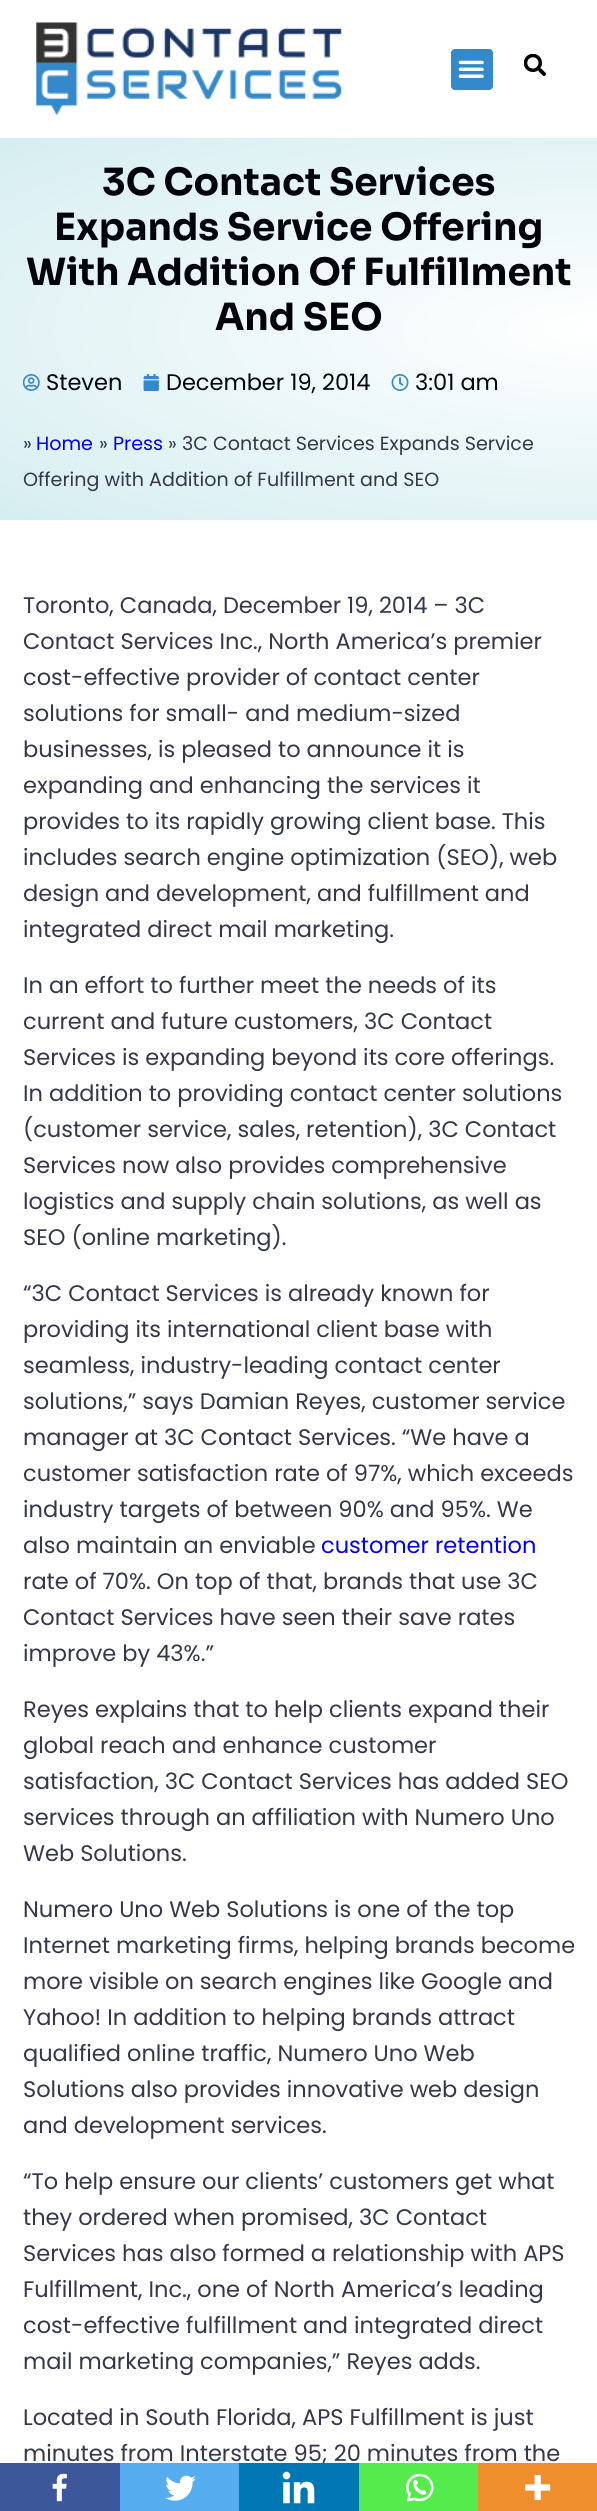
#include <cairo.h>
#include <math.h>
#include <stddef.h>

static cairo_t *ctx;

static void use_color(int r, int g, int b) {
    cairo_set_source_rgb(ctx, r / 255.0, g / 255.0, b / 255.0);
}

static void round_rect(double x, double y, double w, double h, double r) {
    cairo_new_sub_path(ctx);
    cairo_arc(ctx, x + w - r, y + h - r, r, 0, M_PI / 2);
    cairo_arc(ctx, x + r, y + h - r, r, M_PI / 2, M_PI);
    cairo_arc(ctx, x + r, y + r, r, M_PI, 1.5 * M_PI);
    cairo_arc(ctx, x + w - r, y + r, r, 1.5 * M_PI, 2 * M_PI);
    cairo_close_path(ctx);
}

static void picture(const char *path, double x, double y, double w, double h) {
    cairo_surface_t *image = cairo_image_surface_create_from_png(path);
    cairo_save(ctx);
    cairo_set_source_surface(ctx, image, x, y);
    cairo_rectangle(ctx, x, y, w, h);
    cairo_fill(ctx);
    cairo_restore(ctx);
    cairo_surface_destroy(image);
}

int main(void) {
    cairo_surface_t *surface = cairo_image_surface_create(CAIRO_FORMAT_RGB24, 597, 2511);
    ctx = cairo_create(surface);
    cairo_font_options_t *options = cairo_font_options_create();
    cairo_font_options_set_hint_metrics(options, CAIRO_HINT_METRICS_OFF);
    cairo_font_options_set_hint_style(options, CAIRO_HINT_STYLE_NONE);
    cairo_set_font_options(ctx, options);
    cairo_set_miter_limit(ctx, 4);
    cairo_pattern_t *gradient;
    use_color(255, 255, 255);
    cairo_paint(ctx);
    picture("img1.png", 36, 22, 306, 93);
    use_color(51, 137, 201);
    round_rect(451, 49, 42, 41, 4);
    cairo_fill(ctx);
    picture("img2.png", 458, 60, 26, 18);
    picture("img3.png", 524, 54, 22, 22);
    gradient = cairo_pattern_create_radial(0, 0, 0, 0, 0, 1);
    cairo_pattern_set_matrix(gradient, &(cairo_matrix_t){1.0 / 845, 0, 0, 1.0 / 270, -1.0 * 598 / 845, -1.0 * 329 / 270});
    cairo_pattern_add_color_stop_rgba(gradient, 0, 1, 1, 1, 1);
    cairo_pattern_add_color_stop_rgba(gradient, 1, 0.839, 0.933, 0.945, 1);
    cairo_set_source(ctx, gradient);
    cairo_pattern_destroy(gradient);
    cairo_rectangle(ctx, 0, 138, 597, 382);
    cairo_fill(ctx);
    cairo_select_font_face(ctx, "Sora", CAIRO_FONT_SLANT_NORMAL, CAIRO_FONT_WEIGHT_BOLD);
    cairo_set_font_size(ctx, 37.5);
    use_color(0, 3, 10);
    cairo_move_to(ctx, 102, 195);
    cairo_show_text(ctx, "3C Contact Services");
    cairo_move_to(ctx, 54, 240);
    cairo_show_text(ctx, "Expands Service Offering");
    cairo_move_to(ctx, 26, 285);
    cairo_show_text(ctx, "With Addition Of Fulfillment");
    cairo_move_to(ctx, 215, 330);
    cairo_show_text(ctx, "And SEO");
    picture("img4.png", 23, 374, 17, 17);
    cairo_select_font_face(ctx, "Poppins", CAIRO_FONT_SLANT_NORMAL, CAIRO_FONT_WEIGHT_NORMAL);
    cairo_set_font_size(ctx, 22.5);
    cairo_move_to(ctx, 46, 390);
    cairo_show_text(ctx, "Steven");
    picture("img5.png", 143, 374, 16, 17);
    cairo_move_to(ctx, 166, 390);
    cairo_show_text(ctx, "December 19, 2014");
    picture("img6.png", 391, 374, 18, 17);
    cairo_move_to(ctx, 415, 390);
    cairo_show_text(ctx, "3:01 am");
    cairo_set_font_size(ctx, 19.1);
    use_color(51, 55, 72);
    cairo_move_to(ctx, 23, 450);
    cairo_show_text(ctx, "»");
    use_color(0, 0, 238);
    cairo_move_to(ctx, 36, 450);
    cairo_show_text(ctx, "Home");
    use_color(51, 55, 72);
    cairo_move_to(ctx, 99, 450);
    cairo_show_text(ctx, "»");
    use_color(0, 0, 238);
    cairo_move_to(ctx, 113, 450);
    cairo_show_text(ctx, "Press");
    use_color(51, 55, 72);
    cairo_move_to(ctx, 168, 450);
    cairo_show_text(ctx, "» 3C Contact Services Expands Service");
    cairo_move_to(ctx, 23, 486);
    cairo_show_text(ctx, "Offering with Addition of Fulfillment and SEO");
    cairo_set_font_size(ctx, 22.5);
    cairo_move_to(ctx, 23, 613);
    cairo_show_text(ctx, "Toronto, Canada, December 19, 2014 – 3C");
    cairo_move_to(ctx, 23, 649);
    cairo_show_text(ctx, "Contact Services Inc., North America’s premier");
    cairo_move_to(ctx, 23, 685);
    cairo_show_text(ctx, "cost-effective provider of contact center");
    cairo_move_to(ctx, 23, 721);
    cairo_show_text(ctx, "solutions for small- and medium-sized");
    cairo_move_to(ctx, 23, 757);
    cairo_show_text(ctx, "businesses, is pleased to announce it is");
    cairo_move_to(ctx, 23, 793);
    cairo_show_text(ctx, "expanding and enhancing the services it");
    cairo_move_to(ctx, 23, 829);
    cairo_show_text(ctx, "provides to its rapidly growing client base. This");
    cairo_move_to(ctx, 23, 865);
    cairo_show_text(ctx, "includes search engine optimization (SEO), web");
    cairo_move_to(ctx, 23, 901);
    cairo_show_text(ctx, "design and development, and fulfillment and");
    cairo_move_to(ctx, 23, 937);
    cairo_show_text(ctx, "integrated direct mail marketing.");
    cairo_move_to(ctx, 23, 993);
    cairo_show_text(ctx, "In an effort to further meet the needs of its");
    cairo_move_to(ctx, 23, 1029);
    cairo_show_text(ctx, "current and future customers, 3C Contact");
    cairo_move_to(ctx, 23, 1065);
    cairo_show_text(ctx, "Services is expanding beyond its core offerings.");
    cairo_move_to(ctx, 23, 1101);
    cairo_show_text(ctx, "In addition to providing contact center solutions");
    cairo_move_to(ctx, 23, 1137);
    cairo_show_text(ctx, "(customer service, sales, retention), 3C Contact");
    cairo_move_to(ctx, 23, 1173);
    cairo_show_text(ctx, "Services now also provides comprehensive");
    cairo_move_to(ctx, 23, 1209);
    cairo_show_text(ctx, "logistics and supply chain solutions, as well as");
    cairo_move_to(ctx, 23, 1245);
    cairo_show_text(ctx, "SEO (online marketing).");
    cairo_move_to(ctx, 23, 1301);
    cairo_show_text(ctx, "“3C Contact Services is already known for");
    cairo_move_to(ctx, 23, 1337);
    cairo_show_text(ctx, "providing its international client base with");
    cairo_move_to(ctx, 23, 1373);
    cairo_show_text(ctx, "seamless, industry-leading contact center");
    cairo_move_to(ctx, 23, 1409);
    cairo_show_text(ctx, "solutions,” says Damian Reyes, customer service");
    cairo_move_to(ctx, 23, 1445);
    cairo_show_text(ctx, "manager at 3C Contact Services. “We have a");
    cairo_move_to(ctx, 23, 1481);
    cairo_show_text(ctx, "customer satisfaction rate of 97%, which exceeds");
    cairo_move_to(ctx, 23, 1517);
    cairo_show_text(ctx, "industry targets of between 90% and 95%. We");
    cairo_move_to(ctx, 23, 1553);
    cairo_show_text(ctx, "also maintain an enviable");
    use_color(0, 0, 238);
    cairo_move_to(ctx, 321, 1553);
    cairo_show_text(ctx, "customer retention");
    use_color(51, 55, 72);
    cairo_move_to(ctx, 23, 1589);
    cairo_show_text(ctx, "rate of 70%. On top of that, brands that use 3C");
    cairo_move_to(ctx, 23, 1625);
    cairo_show_text(ctx, "Contact Services have seen their save rates");
    cairo_move_to(ctx, 23, 1661);
    cairo_show_text(ctx, "improve by 43%.”");
    cairo_move_to(ctx, 23, 1717);
    cairo_show_text(ctx, "Reyes explains that to help clients expand their");
    cairo_move_to(ctx, 23, 1753);
    cairo_show_text(ctx, "global reach and enhance customer");
    cairo_move_to(ctx, 23, 1789);
    cairo_show_text(ctx, "satisfaction, 3C Contact Services has added SEO");
    cairo_move_to(ctx, 23, 1825);
    cairo_show_text(ctx, "services through an affiliation with Numero Uno");
    cairo_move_to(ctx, 23, 1861);
    cairo_show_text(ctx, "Web Solutions.");
    cairo_move_to(ctx, 23, 1917);
    cairo_show_text(ctx, "Numero Uno Web Solutions is one of the top");
    cairo_move_to(ctx, 23, 1953);
    cairo_show_text(ctx, "Internet marketing firms, helping brands become");
    cairo_move_to(ctx, 23, 1989);
    cairo_show_text(ctx, "more visible on search engines like Google and");
    cairo_move_to(ctx, 23, 2025);
    cairo_show_text(ctx, "Yahoo! In addition to helping brands attract");
    cairo_move_to(ctx, 23, 2061);
    cairo_show_text(ctx, "qualified online traffic, Numero Uno Web");
    cairo_move_to(ctx, 23, 2097);
    cairo_show_text(ctx, "Solutions also provides innovative web design");
    cairo_move_to(ctx, 23, 2133);
    cairo_show_text(ctx, "and development services.");
    cairo_move_to(ctx, 23, 2189);
    cairo_show_text(ctx, "“To help ensure our clients’ customers get what");
    cairo_move_to(ctx, 23, 2225);
    cairo_show_text(ctx, "they ordered when promised, 3C Contact");
    cairo_move_to(ctx, 23, 2261);
    cairo_show_text(ctx, "Services has also formed a relationship with APS");
    cairo_move_to(ctx, 23, 2297);
    cairo_show_text(ctx, "Fulfillment, Inc., one of North America’s leading");
    cairo_move_to(ctx, 23, 2333);
    cairo_show_text(ctx, "cost-effective fulfillment and integrated direct");
    cairo_move_to(ctx, 23, 2369);
    cairo_show_text(ctx, "mail marketing companies,” Reyes adds.");
    cairo_move_to(ctx, 23, 2425);
    cairo_show_text(ctx, "Located in South Florida, APS Fulfillment is just");
    cairo_move_to(ctx, 23, 2461);
    cairo_show_text(ctx, "minutes from Interstate 95; 20 minutes from the");
    use_color(60, 88, 154);
    cairo_rectangle(ctx, 0, 2463, 120, 48);
    cairo_fill(ctx);
    picture("img7.png", 52, 2473, 15, 29);
    use_color(85, 172, 238);
    cairo_rectangle(ctx, 120, 2463, 119, 48);
    cairo_fill(ctx);
    picture("img8.png", 165, 2475, 31, 26);
    use_color(0, 119, 181);
    cairo_rectangle(ctx, 239, 2463, 120, 48);
    cairo_fill(ctx);
    picture("img9.png", 282, 2471, 33, 33);
    use_color(85, 235, 76);
    cairo_rectangle(ctx, 359, 2463, 119, 48);
    cairo_fill(ctx);
    picture("img10.png", 406, 2473, 28, 29);
    use_color(238, 142, 45);
    cairo_rectangle(ctx, 478, 2463, 119, 48);
    cairo_fill(ctx);
    picture("img11.png", 525, 2475, 26, 25);
    cairo_surface_write_to_png(surface, "result.png");
    cairo_font_options_destroy(options);
    cairo_destroy(ctx);
    cairo_surface_destroy(surface);
    return 0;
}
